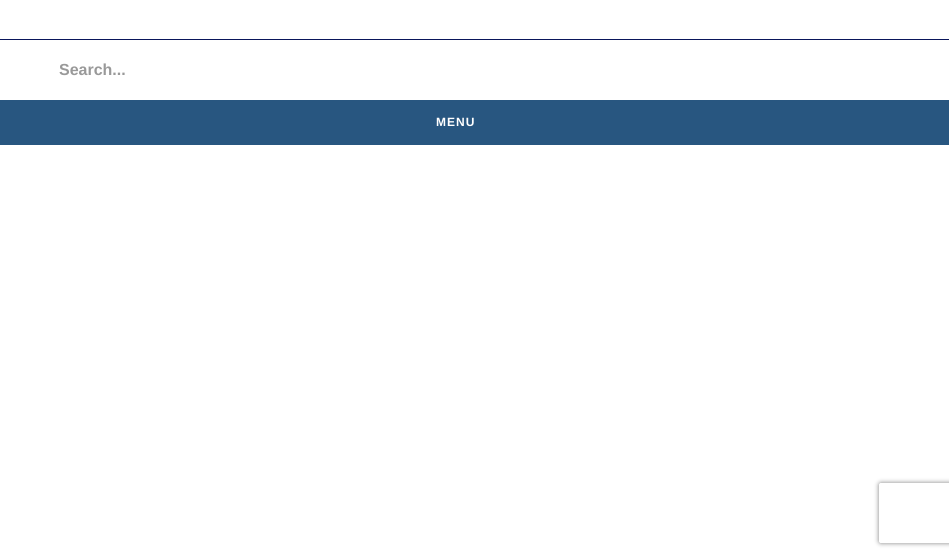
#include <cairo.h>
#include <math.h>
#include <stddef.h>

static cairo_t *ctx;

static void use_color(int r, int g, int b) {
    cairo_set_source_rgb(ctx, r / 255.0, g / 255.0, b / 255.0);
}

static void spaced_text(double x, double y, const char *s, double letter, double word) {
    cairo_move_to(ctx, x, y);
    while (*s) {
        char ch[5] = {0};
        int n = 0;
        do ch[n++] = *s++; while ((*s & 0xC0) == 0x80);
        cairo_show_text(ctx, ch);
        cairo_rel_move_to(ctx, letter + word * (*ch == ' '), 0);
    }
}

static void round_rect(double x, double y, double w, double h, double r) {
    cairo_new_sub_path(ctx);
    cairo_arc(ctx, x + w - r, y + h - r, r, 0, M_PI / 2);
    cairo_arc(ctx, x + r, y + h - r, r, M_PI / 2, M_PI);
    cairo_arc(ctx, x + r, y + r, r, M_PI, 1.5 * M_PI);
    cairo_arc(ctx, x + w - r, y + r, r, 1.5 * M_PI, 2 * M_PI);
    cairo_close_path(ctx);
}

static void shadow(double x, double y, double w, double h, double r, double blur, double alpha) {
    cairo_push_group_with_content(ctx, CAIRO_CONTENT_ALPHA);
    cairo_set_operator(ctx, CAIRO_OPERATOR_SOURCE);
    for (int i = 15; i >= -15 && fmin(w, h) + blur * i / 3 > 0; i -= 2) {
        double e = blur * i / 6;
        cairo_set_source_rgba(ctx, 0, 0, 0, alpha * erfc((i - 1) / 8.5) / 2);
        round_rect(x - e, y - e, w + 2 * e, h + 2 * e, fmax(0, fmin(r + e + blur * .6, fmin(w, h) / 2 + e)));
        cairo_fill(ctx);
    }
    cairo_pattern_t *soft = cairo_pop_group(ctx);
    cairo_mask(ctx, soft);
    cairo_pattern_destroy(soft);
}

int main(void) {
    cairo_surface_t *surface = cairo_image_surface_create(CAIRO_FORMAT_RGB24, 949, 557);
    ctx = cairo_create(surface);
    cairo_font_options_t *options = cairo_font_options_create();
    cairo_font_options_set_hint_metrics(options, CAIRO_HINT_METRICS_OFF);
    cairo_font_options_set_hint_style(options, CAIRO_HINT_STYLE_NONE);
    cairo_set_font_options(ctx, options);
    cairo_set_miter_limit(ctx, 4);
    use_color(255, 255, 255);
    cairo_paint(ctx);
    use_color(10, 22, 91);
    cairo_rectangle(ctx, 0, 39, 949, 1);
    cairo_fill(ctx);
    cairo_select_font_face(ctx, "Liberation Sans", CAIRO_FONT_SLANT_NORMAL, CAIRO_FONT_WEIGHT_BOLD);
    cairo_set_font_size(ctx, 16);
    use_color(153, 153, 153);
    cairo_move_to(ctx, 59, 75);
    cairo_show_text(ctx, "Search...");
    use_color(40, 86, 128);
    cairo_rectangle(ctx, 0, 100, 949, 45);
    cairo_fill(ctx);
    cairo_set_font_size(ctx, 12);
    use_color(255, 255, 255);
    spaced_text(436, 126, "MENU", 1, 0);
    cairo_save(ctx);
    cairo_set_fill_rule(ctx, CAIRO_FILL_RULE_EVEN_ODD);
    cairo_new_path(ctx);
    cairo_move_to(ctx, 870, 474);
    cairo_line_to(ctx, 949, 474);
    cairo_line_to(ctx, 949, 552);
    cairo_line_to(ctx, 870, 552);
    cairo_close_path(ctx);
    cairo_move_to(ctx, 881, 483);
    cairo_line_to(ctx, 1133, 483);
    cairo_curve_to(ctx, 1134, 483, 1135, 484, 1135, 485);
    cairo_line_to(ctx, 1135, 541);
    cairo_curve_to(ctx, 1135, 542, 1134, 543, 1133, 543);
    cairo_line_to(ctx, 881, 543);
    cairo_curve_to(ctx, 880, 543, 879, 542, 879, 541);
    cairo_line_to(ctx, 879, 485);
    cairo_curve_to(ctx, 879, 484, 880, 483, 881, 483);
    cairo_close_path(ctx);
    cairo_clip(ctx);
    use_color(128, 128, 128);
    shadow(879, 483, 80, 60, 2, 2.5, 1);
    cairo_restore(ctx);
    cairo_surface_write_to_png(surface, "result.png");
    cairo_font_options_destroy(options);
    cairo_destroy(ctx);
    cairo_surface_destroy(surface);
    return 0;
}
